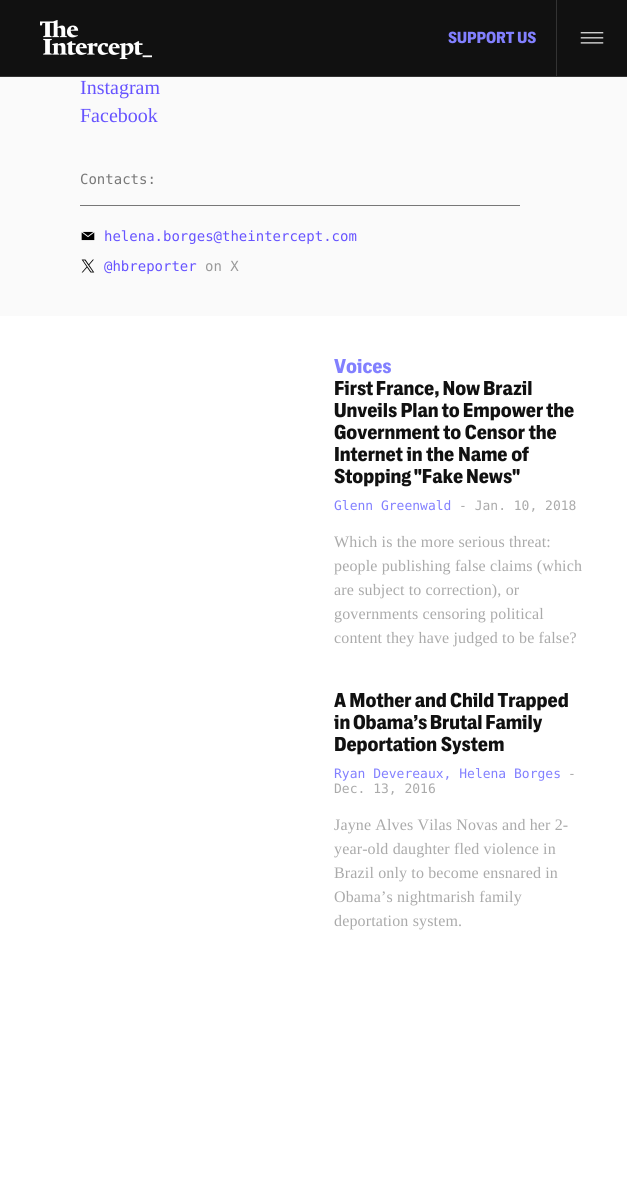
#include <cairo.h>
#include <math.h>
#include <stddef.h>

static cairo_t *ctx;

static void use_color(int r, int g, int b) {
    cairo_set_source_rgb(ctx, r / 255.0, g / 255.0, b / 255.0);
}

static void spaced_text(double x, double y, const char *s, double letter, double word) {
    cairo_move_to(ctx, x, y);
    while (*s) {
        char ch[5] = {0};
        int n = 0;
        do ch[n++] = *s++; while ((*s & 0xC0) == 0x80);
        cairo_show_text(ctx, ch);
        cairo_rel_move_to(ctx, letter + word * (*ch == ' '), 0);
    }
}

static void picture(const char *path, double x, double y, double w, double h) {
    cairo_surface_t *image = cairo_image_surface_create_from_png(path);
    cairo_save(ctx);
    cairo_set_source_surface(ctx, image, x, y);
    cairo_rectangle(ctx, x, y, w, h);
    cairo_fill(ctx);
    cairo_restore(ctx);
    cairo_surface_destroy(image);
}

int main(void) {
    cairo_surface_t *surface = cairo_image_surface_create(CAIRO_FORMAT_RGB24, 627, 1195);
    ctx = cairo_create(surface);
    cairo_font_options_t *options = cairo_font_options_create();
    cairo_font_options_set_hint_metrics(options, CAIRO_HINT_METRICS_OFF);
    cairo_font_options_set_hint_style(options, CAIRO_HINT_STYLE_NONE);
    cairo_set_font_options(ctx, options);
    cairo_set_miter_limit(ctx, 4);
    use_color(255, 255, 255);
    cairo_paint(ctx);
    use_color(17, 17, 17);
    cairo_rectangle(ctx, 0, 0, 627, 76);
    cairo_fill(ctx);
    use_color(51, 51, 51);
    cairo_rectangle(ctx, 0, 76, 627, 1);
    cairo_fill(ctx);
    picture("img1.png", 40, 20, 112, 40);
    cairo_select_font_face(ctx, "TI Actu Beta", CAIRO_FONT_SLANT_NORMAL, CAIRO_FONT_WEIGHT_BOLD);
    cairo_set_font_size(ctx, 16);
    use_color(130, 128, 255);
    cairo_move_to(ctx, 448, 43);
    cairo_show_text(ctx, "SUPPORT US");
    use_color(51, 51, 51);
    cairo_rectangle(ctx, 556, 0, 1, 77);
    cairo_fill(ctx);
    picture("img2.png", 580, 32, 24, 12);
    use_color(250, 250, 250);
    cairo_rectangle(ctx, 0, 77, 627, 239);
    cairo_fill(ctx);
    cairo_select_font_face(ctx, "Liberation Serif", CAIRO_FONT_SLANT_NORMAL, CAIRO_FONT_WEIGHT_NORMAL);
    cairo_set_font_size(ctx, 20);
    use_color(102, 83, 255);
    cairo_move_to(ctx, 80, 94);
    cairo_show_text(ctx, "Instagram");
    cairo_move_to(ctx, 80, 122);
    cairo_show_text(ctx, "Facebook");
    use_color(119, 119, 119);
    cairo_rectangle(ctx, 80, 205, 440, 1);
    cairo_fill(ctx);
    cairo_select_font_face(ctx, "DejaVu Sans Mono", CAIRO_FONT_SLANT_NORMAL, CAIRO_FONT_WEIGHT_NORMAL);
    cairo_set_font_size(ctx, 14);
    cairo_move_to(ctx, 80, 184);
    cairo_show_text(ctx, "Contacts:");
    picture("img3.png", 81, 231, 14, 10);
    use_color(102, 83, 255);
    cairo_move_to(ctx, 104, 241);
    cairo_show_text(ctx, "helena.borges@theintercept.com");
    picture("img4.png", 81, 259, 14, 14);
    cairo_move_to(ctx, 104, 271);
    cairo_show_text(ctx, "@hbreporter");
    use_color(153, 153, 153);
    cairo_move_to(ctx, 205, 271);
    cairo_show_text(ctx, "on X");
    cairo_select_font_face(ctx, "TI Actu Beta", CAIRO_FONT_SLANT_NORMAL, CAIRO_FONT_WEIGHT_BOLD);
    cairo_set_font_size(ctx, 20);
    use_color(130, 128, 255);
    cairo_move_to(ctx, 334, 373);
    cairo_show_text(ctx, "Voices");
    use_color(17, 17, 17);
    spaced_text(334, 395, "First France, Now Brazil", 0, -1);
    spaced_text(334, 417, "Unveils Plan to Empower the", 0, -0.5);
    cairo_move_to(ctx, 334, 439);
    cairo_show_text(ctx, "Government to Censor the");
    cairo_move_to(ctx, 334, 461);
    cairo_show_text(ctx, "Internet in the Name of");
    spaced_text(334, 483, "Stopping \"Fake News\"", 0, -1);
    cairo_select_font_face(ctx, "DejaVu Sans Mono", CAIRO_FONT_SLANT_NORMAL, CAIRO_FONT_WEIGHT_NORMAL);
    cairo_set_font_size(ctx, 13);
    use_color(130, 128, 255);
    cairo_move_to(ctx, 334, 510);
    cairo_show_text(ctx, "Glenn Greenwald");
    use_color(170, 170, 170);
    cairo_move_to(ctx, 459, 510);
    cairo_show_text(ctx, "- Jan. 10, 2018");
    cairo_select_font_face(ctx, "Liberation Serif", CAIRO_FONT_SLANT_NORMAL, CAIRO_FONT_WEIGHT_NORMAL);
    cairo_set_font_size(ctx, 16);
    spaced_text(334, 547, "Which is the more serious threat:", 0.15, 0);
    spaced_text(334, 571, "people publishing false claims (which", 0.15, 0);
    spaced_text(334, 595, "are subject to correction), or", 0.15, 0);
    spaced_text(334, 619, "governments censoring political", 0.15, 0);
    spaced_text(334, 643, "content they have judged to be false?", 0.15, 0);
    cairo_select_font_face(ctx, "TI Actu Beta", CAIRO_FONT_SLANT_NORMAL, CAIRO_FONT_WEIGHT_BOLD);
    cairo_set_font_size(ctx, 20);
    use_color(17, 17, 17);
    spaced_text(334, 707, "A Mother and Child Trapped", 0, -0.5);
    spaced_text(334, 729, "in Obama’s Brutal Family", 0, -1);
    cairo_move_to(ctx, 334, 751);
    cairo_show_text(ctx, "Deportation System");
    cairo_select_font_face(ctx, "DejaVu Sans Mono", CAIRO_FONT_SLANT_NORMAL, CAIRO_FONT_WEIGHT_NORMAL);
    cairo_set_font_size(ctx, 13);
    use_color(130, 128, 255);
    cairo_move_to(ctx, 334, 778);
    cairo_show_text(ctx, "Ryan Devereaux, Helena Borges");
    use_color(170, 170, 170);
    cairo_move_to(ctx, 568, 778);
    cairo_show_text(ctx, "-");
    cairo_move_to(ctx, 334, 793);
    cairo_show_text(ctx, "Dec. 13, 2016");
    cairo_select_font_face(ctx, "Liberation Serif", CAIRO_FONT_SLANT_NORMAL, CAIRO_FONT_WEIGHT_NORMAL);
    cairo_set_font_size(ctx, 16);
    spaced_text(334, 830, "Jayne Alves Vilas Novas and her 2-", 0.15, 0);
    spaced_text(334, 854, "year-old daughter fled violence in", 0.15, 0);
    spaced_text(334, 878, "Brazil only to become ensnared in", 0.15, 0);
    spaced_text(334, 902, "Obama’s nightmarish family", 0.15, 0);
    spaced_text(334, 926, "deportation system.", 0.15, 0);
    cairo_surface_write_to_png(surface, "result.png");
    cairo_font_options_destroy(options);
    cairo_destroy(ctx);
    cairo_surface_destroy(surface);
    return 0;
}
